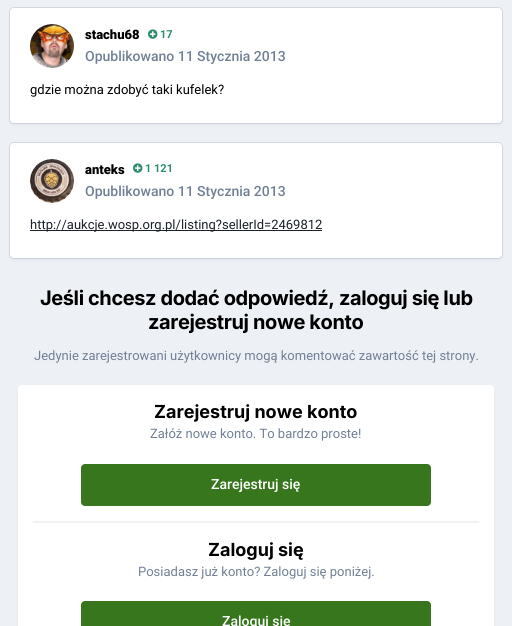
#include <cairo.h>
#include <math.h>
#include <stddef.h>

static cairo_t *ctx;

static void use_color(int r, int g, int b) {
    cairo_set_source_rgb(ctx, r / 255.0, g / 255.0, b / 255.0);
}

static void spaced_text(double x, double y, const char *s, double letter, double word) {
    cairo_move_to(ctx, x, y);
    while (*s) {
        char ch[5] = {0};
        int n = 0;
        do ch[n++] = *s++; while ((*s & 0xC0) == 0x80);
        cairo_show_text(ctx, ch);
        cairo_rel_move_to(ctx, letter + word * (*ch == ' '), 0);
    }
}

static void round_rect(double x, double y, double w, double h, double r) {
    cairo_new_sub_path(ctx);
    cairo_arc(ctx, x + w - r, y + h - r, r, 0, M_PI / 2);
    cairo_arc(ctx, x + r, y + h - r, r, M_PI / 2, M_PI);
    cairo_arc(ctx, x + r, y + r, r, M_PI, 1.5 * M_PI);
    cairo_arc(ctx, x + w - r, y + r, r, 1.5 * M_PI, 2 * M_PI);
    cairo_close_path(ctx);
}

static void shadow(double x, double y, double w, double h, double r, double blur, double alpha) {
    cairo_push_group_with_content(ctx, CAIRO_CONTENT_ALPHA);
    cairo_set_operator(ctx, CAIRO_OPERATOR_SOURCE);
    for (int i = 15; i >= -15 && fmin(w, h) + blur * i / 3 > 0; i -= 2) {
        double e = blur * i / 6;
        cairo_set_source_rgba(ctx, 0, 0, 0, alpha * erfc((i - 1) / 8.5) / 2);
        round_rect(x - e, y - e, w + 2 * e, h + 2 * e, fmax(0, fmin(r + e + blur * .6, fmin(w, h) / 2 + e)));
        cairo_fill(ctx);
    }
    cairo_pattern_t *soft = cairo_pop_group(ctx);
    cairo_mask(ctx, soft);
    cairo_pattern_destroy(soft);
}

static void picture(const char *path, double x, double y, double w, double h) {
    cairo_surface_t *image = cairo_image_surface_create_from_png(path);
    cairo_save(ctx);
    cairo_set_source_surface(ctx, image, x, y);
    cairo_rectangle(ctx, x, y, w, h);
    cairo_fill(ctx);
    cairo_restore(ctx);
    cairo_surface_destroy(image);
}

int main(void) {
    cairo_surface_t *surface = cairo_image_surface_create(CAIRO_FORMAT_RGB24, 512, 626);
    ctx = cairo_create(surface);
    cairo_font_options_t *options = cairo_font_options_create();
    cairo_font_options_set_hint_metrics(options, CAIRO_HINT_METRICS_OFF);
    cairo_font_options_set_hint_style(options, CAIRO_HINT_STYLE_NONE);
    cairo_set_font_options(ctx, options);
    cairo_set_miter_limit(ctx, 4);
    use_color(237, 240, 244);
    cairo_paint(ctx);
    use_color(45, 55, 72);
    shadow(11, 11, 490, 113, 3, 2, 0.1);
    round_rect(9.5, 7.5, 493, 116, 4.5);
    cairo_set_source_rgba(ctx, 0.443, 0.502, 0.588, 0.2);
    cairo_set_line_width(ctx, 1);
    cairo_stroke(ctx);
    use_color(255, 255, 255);
    round_rect(10, 8, 492, 115, 4);
    cairo_fill(ctx);
    picture("img1.png", 30, 24, 44, 44);
    cairo_select_font_face(ctx, "Roboto Black", CAIRO_FONT_SLANT_NORMAL, CAIRO_FONT_WEIGHT_NORMAL);
    cairo_set_font_size(ctx, 13);
    use_color(0, 0, 0);
    cairo_move_to(ctx, 85, 39);
    cairo_show_text(ctx, "stachu68");
    picture("img2.png", 148, 29, 10, 10);
    cairo_select_font_face(ctx, "Roboto", CAIRO_FONT_SLANT_NORMAL, CAIRO_FONT_WEIGHT_BOLD);
    cairo_set_font_size(ctx, 11);
    use_color(44, 140, 105);
    cairo_move_to(ctx, 160, 38);
    cairo_show_text(ctx, "17");
    cairo_select_font_face(ctx, "Roboto Medium", CAIRO_FONT_SLANT_NORMAL, CAIRO_FONT_WEIGHT_NORMAL);
    cairo_set_font_size(ctx, 14);
    use_color(113, 128, 150);
    cairo_move_to(ctx, 85, 61);
    cairo_show_text(ctx, "Opublikowano 11 Stycznia 2013");
    cairo_select_font_face(ctx, "Roboto", CAIRO_FONT_SLANT_NORMAL, CAIRO_FONT_WEIGHT_NORMAL);
    cairo_set_font_size(ctx, 13);
    use_color(0, 0, 0);
    cairo_move_to(ctx, 30, 94);
    cairo_show_text(ctx, "gdzie można zdobyć taki kufelek?");
    use_color(45, 55, 72);
    shadow(11, 146, 490, 113, 3, 2, 0.1);
    round_rect(9.5, 142.5, 493, 116, 4.5);
    cairo_set_source_rgba(ctx, 0.443, 0.502, 0.588, 0.2);
    cairo_stroke(ctx);
    use_color(255, 255, 255);
    round_rect(10, 143, 492, 115, 4);
    cairo_fill(ctx);
    picture("img3.png", 30, 159, 44, 44);
    cairo_select_font_face(ctx, "Roboto Black", CAIRO_FONT_SLANT_NORMAL, CAIRO_FONT_WEIGHT_NORMAL);
    use_color(0, 0, 0);
    cairo_move_to(ctx, 85, 174);
    cairo_show_text(ctx, "anteks");
    picture("img2.png", 133, 163, 10, 10);
    cairo_select_font_face(ctx, "Roboto", CAIRO_FONT_SLANT_NORMAL, CAIRO_FONT_WEIGHT_BOLD);
    cairo_set_font_size(ctx, 11);
    use_color(44, 140, 105);
    cairo_move_to(ctx, 145, 172);
    cairo_show_text(ctx, "1 121");
    cairo_select_font_face(ctx, "Roboto Medium", CAIRO_FONT_SLANT_NORMAL, CAIRO_FONT_WEIGHT_NORMAL);
    cairo_set_font_size(ctx, 14);
    use_color(113, 128, 150);
    cairo_move_to(ctx, 85, 196);
    cairo_show_text(ctx, "Opublikowano 11 Stycznia 2013");
    use_color(26, 32, 44);
    cairo_rectangle(ctx, 30, 230, 292, 1);
    cairo_fill(ctx);
    cairo_select_font_face(ctx, "Roboto", CAIRO_FONT_SLANT_NORMAL, CAIRO_FONT_WEIGHT_NORMAL);
    cairo_set_font_size(ctx, 13);
    cairo_move_to(ctx, 30, 229);
    cairo_show_text(ctx, "http://aukcje.wosp.org.pl/listing?sellerId=2469812");
    cairo_select_font_face(ctx, "Inter", CAIRO_FONT_SLANT_NORMAL, CAIRO_FONT_WEIGHT_BOLD);
    cairo_set_font_size(ctx, 20);
    use_color(0, 0, 0);
    spaced_text(40, 305, "Jeśli chcesz dodać odpowiedź, zaloguj się lub", -0.4, 0);
    spaced_text(148, 329, "zarejestruj nowe konto", -0.4, 0);
    cairo_select_font_face(ctx, "Roboto", CAIRO_FONT_SLANT_NORMAL, CAIRO_FONT_WEIGHT_NORMAL);
    cairo_set_font_size(ctx, 13);
    use_color(113, 128, 150);
    cairo_move_to(ctx, 34, 360);
    cairo_show_text(ctx, "Jedynie zarejestrowani użytkownicy mogą komentować zawartość tej strony.");
    use_color(45, 55, 72);
    shadow(19, 388, 474, 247, 3, 2, 0.1);
    use_color(255, 255, 255);
    round_rect(18, 385, 476, 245, 4);
    cairo_fill(ctx);
    use_color(242, 242, 242);
    cairo_rectangle(ctx, 33, 521, 446, 2);
    cairo_fill(ctx);
    cairo_select_font_face(ctx, "Inter", CAIRO_FONT_SLANT_NORMAL, CAIRO_FONT_WEIGHT_BOLD);
    cairo_set_font_size(ctx, 18);
    use_color(0, 0, 0);
    cairo_move_to(ctx, 154, 418);
    cairo_show_text(ctx, "Zarejestruj nowe konto");
    cairo_select_font_face(ctx, "Roboto", CAIRO_FONT_SLANT_NORMAL, CAIRO_FONT_WEIGHT_NORMAL);
    cairo_set_font_size(ctx, 13);
    use_color(113, 128, 150);
    cairo_move_to(ctx, 150, 438);
    cairo_show_text(ctx, "Załóż nowe konto. To bardzo proste!");
    use_color(56, 118, 29);
    round_rect(81, 464, 350, 42, 4);
    cairo_fill(ctx);
    cairo_select_font_face(ctx, "Roboto Medium", CAIRO_FONT_SLANT_NORMAL, CAIRO_FONT_WEIGHT_NORMAL);
    cairo_set_font_size(ctx, 14);
    use_color(255, 255, 255);
    cairo_move_to(ctx, 211, 489);
    cairo_show_text(ctx, "Zarejestruj się");
    cairo_select_font_face(ctx, "Inter", CAIRO_FONT_SLANT_NORMAL, CAIRO_FONT_WEIGHT_BOLD);
    cairo_set_font_size(ctx, 18);
    use_color(0, 0, 0);
    cairo_move_to(ctx, 208, 556);
    cairo_show_text(ctx, "Zaloguj się");
    cairo_select_font_face(ctx, "Roboto", CAIRO_FONT_SLANT_NORMAL, CAIRO_FONT_WEIGHT_NORMAL);
    cairo_set_font_size(ctx, 13);
    use_color(113, 128, 150);
    cairo_move_to(ctx, 138, 576);
    cairo_show_text(ctx, "Posiadasz już konto? Zaloguj się poniżej.");
    use_color(56, 118, 29);
    round_rect(81, 601, 350, 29, 4);
    cairo_fill(ctx);
    cairo_select_font_face(ctx, "Roboto Medium", CAIRO_FONT_SLANT_NORMAL, CAIRO_FONT_WEIGHT_NORMAL);
    cairo_set_font_size(ctx, 14);
    use_color(255, 255, 255);
    cairo_move_to(ctx, 222, 626);
    cairo_show_text(ctx, "Zaloguj się");
    cairo_surface_write_to_png(surface, "result.png");
    cairo_font_options_destroy(options);
    cairo_destroy(ctx);
    cairo_surface_destroy(surface);
    return 0;
}
